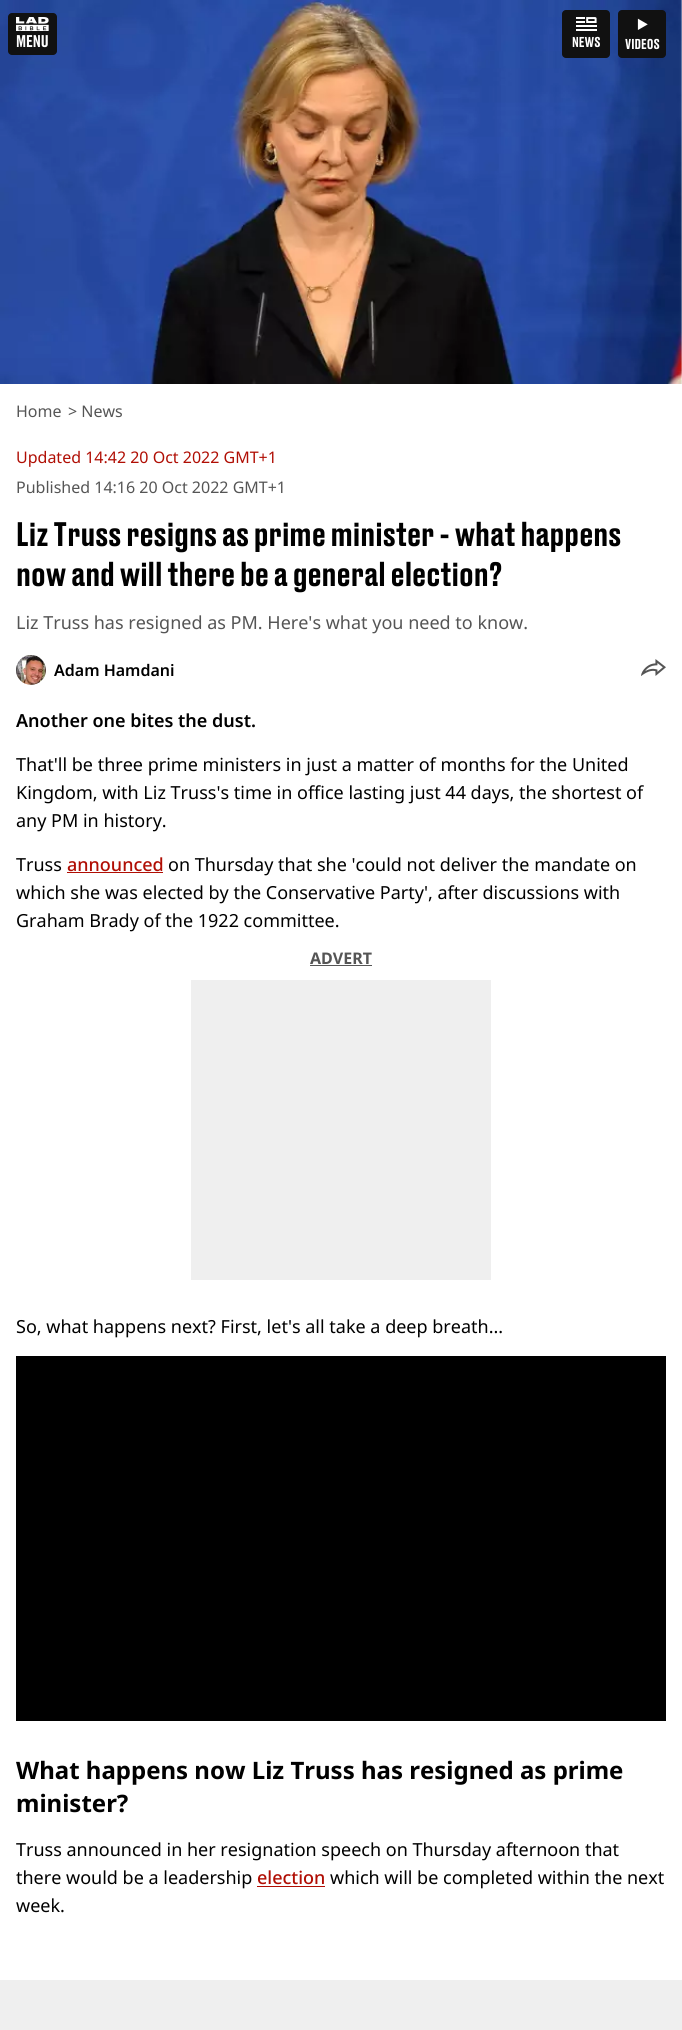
#include <cairo.h>
#include <math.h>
#include <stddef.h>

static cairo_t *ctx;

static void use_color(int r, int g, int b) {
    cairo_set_source_rgb(ctx, r / 255.0, g / 255.0, b / 255.0);
}

static void round_rect(double x, double y, double w, double h, double r) {
    cairo_new_sub_path(ctx);
    cairo_arc(ctx, x + w - r, y + h - r, r, 0, M_PI / 2);
    cairo_arc(ctx, x + r, y + h - r, r, M_PI / 2, M_PI);
    cairo_arc(ctx, x + r, y + r, r, M_PI, 1.5 * M_PI);
    cairo_arc(ctx, x + w - r, y + r, r, 1.5 * M_PI, 2 * M_PI);
    cairo_close_path(ctx);
}

static void picture(const char *path, double x, double y, double w, double h) {
    cairo_surface_t *image = cairo_image_surface_create_from_png(path);
    cairo_save(ctx);
    cairo_set_source_surface(ctx, image, x, y);
    cairo_rectangle(ctx, x, y, w, h);
    cairo_fill(ctx);
    cairo_restore(ctx);
    cairo_surface_destroy(image);
}

int main(void) {
    cairo_surface_t *surface = cairo_image_surface_create(CAIRO_FORMAT_RGB24, 682, 2030);
    ctx = cairo_create(surface);
    cairo_font_options_t *options = cairo_font_options_create();
    cairo_font_options_set_hint_metrics(options, CAIRO_HINT_METRICS_OFF);
    cairo_font_options_set_hint_style(options, CAIRO_HINT_STYLE_NONE);
    cairo_set_font_options(ctx, options);
    cairo_set_miter_limit(ctx, 4);
    use_color(255, 255, 255);
    cairo_paint(ctx);
    picture("img4.png", 0, 0, 682, 384);
    use_color(17, 17, 17);
    round_rect(8, 13, 49, 42, 4);
    cairo_fill(ctx);
    picture("img1.png", 16, 17, 33, 14);
    cairo_select_font_face(ctx, "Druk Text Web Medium", CAIRO_FONT_SLANT_NORMAL, CAIRO_FONT_WEIGHT_NORMAL);
    cairo_set_font_size(ctx, 16);
    use_color(255, 255, 255);
    cairo_move_to(ctx, 16, 47);
    cairo_show_text(ctx, "MENU");
    use_color(17, 17, 17);
    round_rect(562, 10, 48, 48, 4);
    cairo_fill(ctx);
    picture("img2.png", 576, 17, 21, 14);
    cairo_set_font_size(ctx, 13.5);
    use_color(255, 255, 255);
    cairo_move_to(ctx, 572, 47);
    cairo_show_text(ctx, "NEWS");
    use_color(17, 17, 17);
    round_rect(618, 10, 48, 48, 4);
    cairo_fill(ctx);
    picture("img3.png", 637, 18, 11, 12);
    use_color(255, 255, 255);
    cairo_move_to(ctx, 625, 49);
    cairo_show_text(ctx, "VIDEOS");
    cairo_select_font_face(ctx, "Noto Sans", CAIRO_FONT_SLANT_NORMAL, CAIRO_FONT_WEIGHT_NORMAL);
    cairo_set_font_size(ctx, 16);
    use_color(85, 85, 85);
    cairo_move_to(ctx, 16, 417);
    cairo_show_text(ctx, "Home");
    cairo_move_to(ctx, 68, 417);
    cairo_show_text(ctx, "> News");
    use_color(176, 14, 4);
    cairo_move_to(ctx, 16, 463);
    cairo_show_text(ctx, "Updated 14:42 20 Oct 2022 GMT+1");
    use_color(85, 85, 85);
    cairo_move_to(ctx, 16, 493);
    cairo_show_text(ctx, "Published 14:16 20 Oct 2022 GMT+1");
    cairo_select_font_face(ctx, "Druk Text Web Medium", CAIRO_FONT_SLANT_NORMAL, CAIRO_FONT_WEIGHT_NORMAL);
    cairo_set_font_size(ctx, 32);
    use_color(0, 0, 0);
    cairo_move_to(ctx, 16, 546);
    cairo_show_text(ctx, "Liz Truss resigns as prime minister - what happens");
    cairo_move_to(ctx, 16, 586);
    cairo_show_text(ctx, "now and will there be a general election?");
    cairo_select_font_face(ctx, "Noto Sans", CAIRO_FONT_SLANT_NORMAL, CAIRO_FONT_WEIGHT_NORMAL);
    cairo_set_font_size(ctx, 18);
    use_color(85, 85, 85);
    cairo_move_to(ctx, 16, 629);
    cairo_show_text(ctx, "Liz Truss has resigned as PM. Here's what you need to know.");
    picture("img5.png", 16, 655, 30, 30);
    cairo_select_font_face(ctx, "Noto Sans SemiBold", CAIRO_FONT_SLANT_NORMAL, CAIRO_FONT_WEIGHT_NORMAL);
    cairo_set_font_size(ctx, 16);
    use_color(0, 0, 0);
    cairo_move_to(ctx, 54, 676);
    cairo_show_text(ctx, "Adam Hamdani");
    picture("img6.png", 641, 659, 25, 17);
    cairo_set_font_size(ctx, 18);
    cairo_move_to(ctx, 16, 727);
    cairo_show_text(ctx, "Another one bites the dust.");
    cairo_select_font_face(ctx, "Noto Sans", CAIRO_FONT_SLANT_NORMAL, CAIRO_FONT_WEIGHT_NORMAL);
    cairo_move_to(ctx, 16, 771);
    cairo_show_text(ctx, "That'll be three prime ministers in just a matter of months for the United");
    cairo_move_to(ctx, 16, 799);
    cairo_show_text(ctx, "Kingdom, with Liz Truss's time in office lasting just 44 days, the shortest of");
    cairo_move_to(ctx, 16, 827);
    cairo_show_text(ctx, "any PM in history.");
    cairo_move_to(ctx, 16, 871);
    cairo_show_text(ctx, "Truss");
    cairo_select_font_face(ctx, "Noto Sans Medium", CAIRO_FONT_SLANT_NORMAL, CAIRO_FONT_WEIGHT_NORMAL);
    use_color(176, 14, 4);
    cairo_move_to(ctx, 67, 871);
    cairo_show_text(ctx, "announced");
    cairo_rectangle(ctx, 67, 872, 96, 1);
    cairo_fill(ctx);
    cairo_select_font_face(ctx, "Noto Sans", CAIRO_FONT_SLANT_NORMAL, CAIRO_FONT_WEIGHT_NORMAL);
    use_color(0, 0, 0);
    cairo_move_to(ctx, 168, 871);
    cairo_show_text(ctx, "on Thursday that she 'could not deliver the mandate on");
    cairo_move_to(ctx, 16, 899);
    cairo_show_text(ctx, "which she was elected by the Conservative Party', after discussions with");
    cairo_move_to(ctx, 16, 927);
    cairo_show_text(ctx, "Graham Brady of the 1922 committee.");
    cairo_select_font_face(ctx, "Noto Sans", CAIRO_FONT_SLANT_NORMAL, CAIRO_FONT_WEIGHT_BOLD);
    cairo_set_font_size(ctx, 16);
    use_color(85, 85, 85);
    cairo_move_to(ctx, 310, 964);
    cairo_show_text(ctx, "ADVERT");
    cairo_rectangle(ctx, 310, 965, 62, 1);
    cairo_fill(ctx);
    use_color(239, 239, 239);
    cairo_rectangle(ctx, 191, 980, 300, 300);
    cairo_fill(ctx);
    cairo_select_font_face(ctx, "Noto Sans", CAIRO_FONT_SLANT_NORMAL, CAIRO_FONT_WEIGHT_NORMAL);
    cairo_set_font_size(ctx, 18);
    use_color(0, 0, 0);
    cairo_move_to(ctx, 16, 1333);
    cairo_show_text(ctx, "So, what happens next? First, let's all take a deep breath...");
    cairo_rectangle(ctx, 16, 1356, 650, 365);
    cairo_fill(ctx);
    cairo_select_font_face(ctx, "Noto Sans", CAIRO_FONT_SLANT_NORMAL, CAIRO_FONT_WEIGHT_BOLD);
    cairo_set_font_size(ctx, 24);
    cairo_move_to(ctx, 16, 1779);
    cairo_show_text(ctx, "What happens now Liz Truss has resigned as prime");
    cairo_move_to(ctx, 16, 1812);
    cairo_show_text(ctx, "minister?");
    cairo_select_font_face(ctx, "Noto Sans", CAIRO_FONT_SLANT_NORMAL, CAIRO_FONT_WEIGHT_NORMAL);
    cairo_set_font_size(ctx, 18);
    cairo_move_to(ctx, 16, 1856);
    cairo_show_text(ctx, "Truss announced in her resignation speech on Thursday afternoon that");
    cairo_move_to(ctx, 16, 1884);
    cairo_show_text(ctx, "there would be a leadership");
    cairo_select_font_face(ctx, "Noto Sans Medium", CAIRO_FONT_SLANT_NORMAL, CAIRO_FONT_WEIGHT_NORMAL);
    use_color(176, 14, 4);
    cairo_move_to(ctx, 257, 1884);
    cairo_show_text(ctx, "election");
    cairo_rectangle(ctx, 257, 1886, 68, 1);
    cairo_fill(ctx);
    cairo_select_font_face(ctx, "Noto Sans", CAIRO_FONT_SLANT_NORMAL, CAIRO_FONT_WEIGHT_NORMAL);
    use_color(0, 0, 0);
    cairo_move_to(ctx, 330, 1884);
    cairo_show_text(ctx, "which will be completed within the next");
    cairo_move_to(ctx, 16, 1912);
    cairo_show_text(ctx, "week.");
    use_color(239, 239, 239);
    cairo_rectangle(ctx, 0, 1980, 682, 50);
    cairo_fill(ctx);
    cairo_surface_write_to_png(surface, "result.png");
    cairo_font_options_destroy(options);
    cairo_destroy(ctx);
    cairo_surface_destroy(surface);
    return 0;
}
